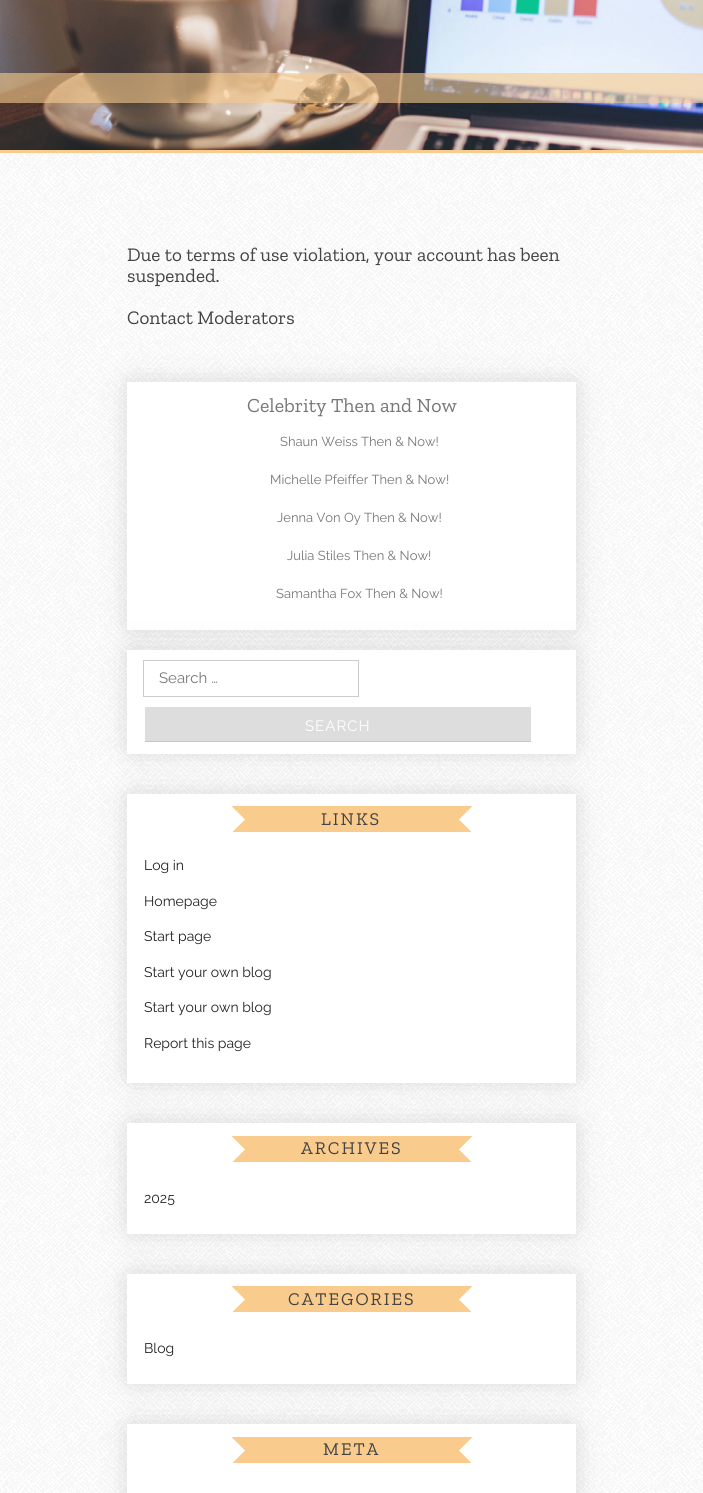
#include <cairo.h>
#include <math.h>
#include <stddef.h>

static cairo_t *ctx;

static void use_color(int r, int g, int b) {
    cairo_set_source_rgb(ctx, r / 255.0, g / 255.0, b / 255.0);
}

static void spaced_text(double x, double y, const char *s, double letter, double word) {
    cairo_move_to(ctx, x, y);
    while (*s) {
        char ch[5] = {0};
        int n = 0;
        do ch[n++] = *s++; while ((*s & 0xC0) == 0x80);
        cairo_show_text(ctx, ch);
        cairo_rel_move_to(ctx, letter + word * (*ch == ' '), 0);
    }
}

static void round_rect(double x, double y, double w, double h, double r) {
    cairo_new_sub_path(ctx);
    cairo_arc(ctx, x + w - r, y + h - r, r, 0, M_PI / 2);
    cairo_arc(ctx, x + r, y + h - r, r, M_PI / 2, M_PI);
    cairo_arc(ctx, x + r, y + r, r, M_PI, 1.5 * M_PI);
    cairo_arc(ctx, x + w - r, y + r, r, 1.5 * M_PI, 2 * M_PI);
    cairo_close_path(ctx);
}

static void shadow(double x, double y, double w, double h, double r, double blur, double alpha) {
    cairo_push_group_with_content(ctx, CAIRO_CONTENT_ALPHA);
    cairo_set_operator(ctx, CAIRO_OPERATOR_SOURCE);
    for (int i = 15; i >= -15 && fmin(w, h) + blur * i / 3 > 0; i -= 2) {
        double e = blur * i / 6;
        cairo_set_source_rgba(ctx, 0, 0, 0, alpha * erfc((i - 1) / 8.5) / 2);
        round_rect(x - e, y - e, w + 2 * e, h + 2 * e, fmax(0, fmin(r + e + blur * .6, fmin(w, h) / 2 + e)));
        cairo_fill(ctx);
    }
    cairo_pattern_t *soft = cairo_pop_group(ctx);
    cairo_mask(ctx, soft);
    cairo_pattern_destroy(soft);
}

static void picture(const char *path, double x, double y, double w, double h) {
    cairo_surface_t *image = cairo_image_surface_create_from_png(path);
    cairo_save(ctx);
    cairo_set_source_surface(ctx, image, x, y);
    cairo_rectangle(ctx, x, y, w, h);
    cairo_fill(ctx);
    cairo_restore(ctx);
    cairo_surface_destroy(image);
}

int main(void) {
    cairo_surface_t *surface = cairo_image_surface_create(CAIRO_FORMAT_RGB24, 703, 1493);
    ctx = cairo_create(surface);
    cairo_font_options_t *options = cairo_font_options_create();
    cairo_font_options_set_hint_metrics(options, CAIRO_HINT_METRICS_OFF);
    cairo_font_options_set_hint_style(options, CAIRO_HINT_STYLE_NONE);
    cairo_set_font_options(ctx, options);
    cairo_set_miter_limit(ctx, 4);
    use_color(255, 255, 255);
    cairo_paint(ctx);
    picture("img1.png", 0, 153, 703, 1340);
    picture("img2.png", 0, 0, 703, 150);
    use_color(249, 203, 141);
    cairo_rectangle(ctx, 0, 150, 703, 3);
    cairo_fill(ctx);
    cairo_set_source_rgba(ctx, 0.976, 0.796, 0.553, 0.6);
    cairo_rectangle(ctx, 0, 73, 703, 30);
    cairo_fill(ctx);
    cairo_select_font_face(ctx, "Zilla Slab", CAIRO_FONT_SLANT_NORMAL, CAIRO_FONT_WEIGHT_NORMAL);
    cairo_set_font_size(ctx, 19.25);
    use_color(68, 68, 68);
    cairo_move_to(ctx, 127, 261);
    cairo_show_text(ctx, "Due to terms of use violation, your account has been");
    cairo_move_to(ctx, 127, 282);
    cairo_show_text(ctx, "suspended.");
    cairo_move_to(ctx, 127, 324);
    cairo_show_text(ctx, "Contact Moderators");
    use_color(0, 0, 0);
    shadow(131, 385, 441, 240, 0, 15, 0.17);
    use_color(255, 255, 255);
    cairo_rectangle(ctx, 127, 382, 449, 248);
    cairo_fill(ctx);
    cairo_set_font_size(ctx, 20);
    use_color(119, 119, 119);
    cairo_move_to(ctx, 247, 412);
    cairo_show_text(ctx, "Celebrity Then and Now");
    cairo_select_font_face(ctx, "Raleway", CAIRO_FONT_SLANT_NORMAL, CAIRO_FONT_WEIGHT_NORMAL);
    cairo_set_font_size(ctx, 13);
    cairo_move_to(ctx, 280, 446);
    cairo_show_text(ctx, "Shaun Weiss Then & Now!");
    cairo_move_to(ctx, 270, 484);
    cairo_show_text(ctx, "Michelle Pfeiffer Then & Now!");
    cairo_move_to(ctx, 277, 522);
    cairo_show_text(ctx, "Jenna Von Oy Then & Now!");
    cairo_move_to(ctx, 287, 560);
    cairo_show_text(ctx, "Julia Stiles Then & Now!");
    cairo_move_to(ctx, 276, 598);
    cairo_show_text(ctx, "Samantha Fox Then & Now!");
    use_color(0, 0, 0);
    shadow(131, 653, 441, 96, 0, 15, 0.17);
    use_color(255, 255, 255);
    cairo_rectangle(ctx, 127, 650, 449, 104);
    cairo_fill(ctx);
    cairo_rectangle(ctx, 143.5, 660.5, 215, 36);
    use_color(204, 204, 204);
    cairo_set_line_width(ctx, 1);
    cairo_stroke(ctx);
    cairo_set_font_size(ctx, 15);
    use_color(119, 119, 119);
    cairo_move_to(ctx, 159, 683);
    cairo_show_text(ctx, "Search …");
    use_color(221, 221, 221);
    cairo_rectangle(ctx, 145, 707, 386, 34);
    cairo_fill(ctx);
    use_color(199, 199, 199);
    cairo_rectangle(ctx, 145, 741, 386, 1);
    cairo_fill(ctx);
    use_color(255, 255, 255);
    spaced_text(305, 731, "SEARCH", 1, 0);
    use_color(0, 0, 0);
    shadow(131, 797, 441, 281, 0, 15, 0.17);
    use_color(255, 255, 255);
    cairo_rectangle(ctx, 127, 794, 449, 289);
    cairo_fill(ctx);
    picture("img3.png", 232, 806, 240, 26);
    cairo_select_font_face(ctx, "Zilla Slab", CAIRO_FONT_SLANT_NORMAL, CAIRO_FONT_WEIGHT_NORMAL);
    cairo_set_font_size(ctx, 18);
    use_color(68, 68, 68);
    spaced_text(321, 825, "LINKS", 2, 0);
    cairo_select_font_face(ctx, "Raleway", CAIRO_FONT_SLANT_NORMAL, CAIRO_FONT_WEIGHT_NORMAL);
    cairo_set_font_size(ctx, 14);
    use_color(34, 34, 34);
    cairo_move_to(ctx, 144, 870);
    cairo_show_text(ctx, "Log in");
    cairo_move_to(ctx, 144, 906);
    cairo_show_text(ctx, "Homepage");
    cairo_move_to(ctx, 144, 941);
    cairo_show_text(ctx, "Start page");
    cairo_move_to(ctx, 144, 977);
    cairo_show_text(ctx, "Start your own blog");
    cairo_move_to(ctx, 144, 1012);
    cairo_show_text(ctx, "Start your own blog");
    cairo_move_to(ctx, 144, 1048);
    cairo_show_text(ctx, "Report this page");
    use_color(0, 0, 0);
    shadow(131, 1126, 441, 103, 0, 15, 0.17);
    use_color(255, 255, 255);
    cairo_rectangle(ctx, 127, 1123, 449, 111);
    cairo_fill(ctx);
    picture("img3.png", 232, 1136, 240, 26);
    cairo_select_font_face(ctx, "Zilla Slab", CAIRO_FONT_SLANT_NORMAL, CAIRO_FONT_WEIGHT_NORMAL);
    cairo_set_font_size(ctx, 18);
    use_color(68, 68, 68);
    spaced_text(301, 1154, "ARCHIVES", 2, 0);
    cairo_select_font_face(ctx, "Raleway", CAIRO_FONT_SLANT_NORMAL, CAIRO_FONT_WEIGHT_NORMAL);
    cairo_set_font_size(ctx, 14);
    use_color(34, 34, 34);
    cairo_move_to(ctx, 144, 1203);
    cairo_show_text(ctx, "2025");
    use_color(0, 0, 0);
    shadow(131, 1277, 441, 102, 0, 15, 0.17);
    use_color(255, 255, 255);
    cairo_rectangle(ctx, 127, 1274, 449, 110);
    cairo_fill(ctx);
    picture("img3.png", 232, 1286, 240, 26);
    cairo_select_font_face(ctx, "Zilla Slab", CAIRO_FONT_SLANT_NORMAL, CAIRO_FONT_WEIGHT_NORMAL);
    cairo_set_font_size(ctx, 18);
    use_color(68, 68, 68);
    spaced_text(288, 1305, "CATEGORIES", 2, 0);
    cairo_select_font_face(ctx, "Raleway", CAIRO_FONT_SLANT_NORMAL, CAIRO_FONT_WEIGHT_NORMAL);
    cairo_set_font_size(ctx, 14);
    use_color(34, 34, 34);
    cairo_move_to(ctx, 144, 1353);
    cairo_show_text(ctx, "Blog");
    use_color(0, 0, 0);
    shadow(131, 1427, 441, 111, 0, 15, 0.17);
    use_color(255, 255, 255);
    cairo_rectangle(ctx, 127, 1424, 449, 69);
    cairo_fill(ctx);
    picture("img3.png", 232, 1437, 240, 26);
    cairo_select_font_face(ctx, "Zilla Slab", CAIRO_FONT_SLANT_NORMAL, CAIRO_FONT_WEIGHT_NORMAL);
    cairo_set_font_size(ctx, 18);
    use_color(68, 68, 68);
    spaced_text(323, 1455, "META", 2, 0);
    cairo_surface_write_to_png(surface, "result.png");
    cairo_font_options_destroy(options);
    cairo_destroy(ctx);
    cairo_surface_destroy(surface);
    return 0;
}
